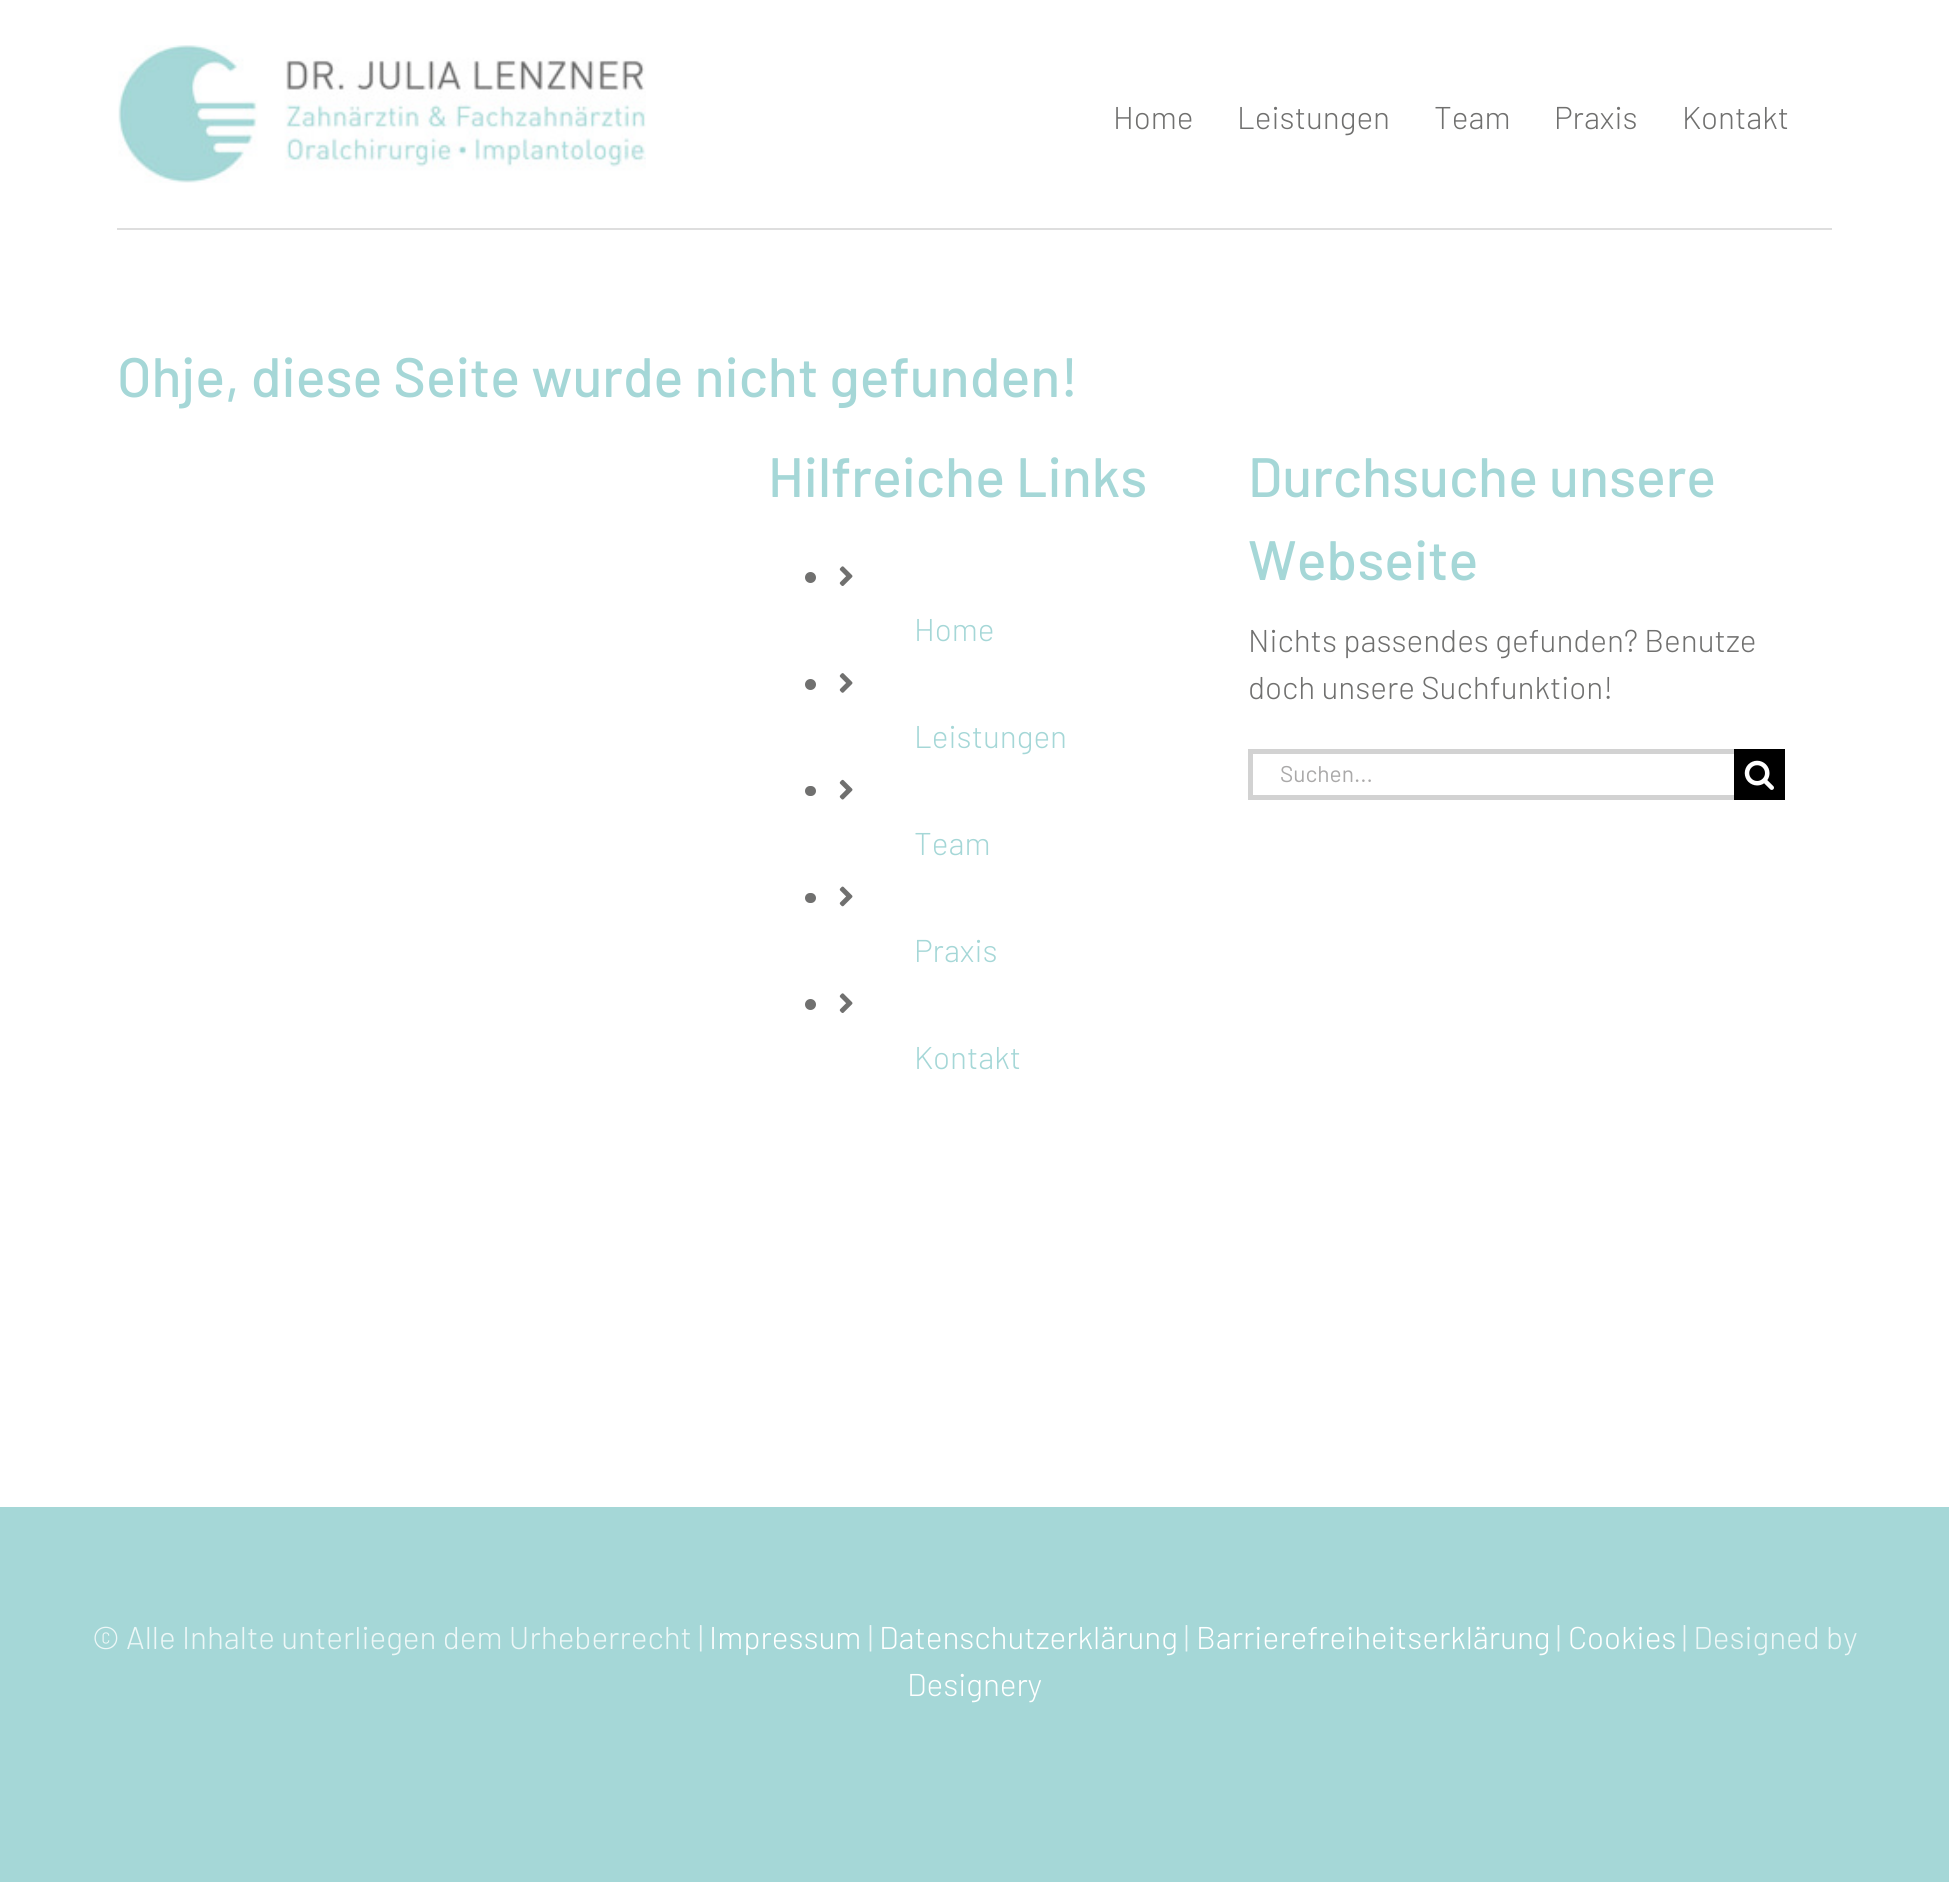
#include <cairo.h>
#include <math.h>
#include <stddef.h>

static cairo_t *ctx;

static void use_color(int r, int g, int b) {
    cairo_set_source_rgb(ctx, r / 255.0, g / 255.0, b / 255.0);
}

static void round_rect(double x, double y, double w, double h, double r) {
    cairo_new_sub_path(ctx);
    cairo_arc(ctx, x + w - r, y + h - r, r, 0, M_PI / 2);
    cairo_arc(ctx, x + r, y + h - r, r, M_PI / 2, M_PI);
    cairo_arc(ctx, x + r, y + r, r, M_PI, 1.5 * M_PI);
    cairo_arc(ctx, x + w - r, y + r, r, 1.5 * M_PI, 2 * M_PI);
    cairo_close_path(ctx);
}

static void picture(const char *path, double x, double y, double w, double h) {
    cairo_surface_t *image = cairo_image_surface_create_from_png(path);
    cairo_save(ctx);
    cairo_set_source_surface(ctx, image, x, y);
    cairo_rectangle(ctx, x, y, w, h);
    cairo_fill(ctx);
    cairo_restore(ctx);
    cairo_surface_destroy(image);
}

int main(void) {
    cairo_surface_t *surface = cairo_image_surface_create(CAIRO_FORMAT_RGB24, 1949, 1882);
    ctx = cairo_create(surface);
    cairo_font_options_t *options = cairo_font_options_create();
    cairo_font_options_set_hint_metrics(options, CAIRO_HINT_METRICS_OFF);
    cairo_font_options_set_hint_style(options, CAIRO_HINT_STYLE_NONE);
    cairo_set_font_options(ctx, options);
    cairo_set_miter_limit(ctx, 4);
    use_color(255, 255, 255);
    cairo_paint(ctx);
    use_color(222, 222, 222);
    cairo_rectangle(ctx, 117, 228, 1715, 2);
    cairo_fill(ctx);
    picture("img1.png", 118, 45, 528, 138);
    cairo_select_font_face(ctx, "Barlow Light", CAIRO_FONT_SLANT_NORMAL, CAIRO_FONT_WEIGHT_NORMAL);
    cairo_set_font_size(ctx, 31.5);
    use_color(112, 112, 111);
    cairo_move_to(ctx, 1113, 129);
    cairo_show_text(ctx, "Home");
    cairo_move_to(ctx, 1237, 129);
    cairo_show_text(ctx, "Leistungen");
    cairo_move_to(ctx, 1434, 129);
    cairo_show_text(ctx, "Team");
    cairo_move_to(ctx, 1554, 129);
    cairo_show_text(ctx, "Praxis");
    cairo_move_to(ctx, 1682, 129);
    cairo_show_text(ctx, "Kontakt");
    cairo_select_font_face(ctx, "Barlow Medium", CAIRO_FONT_SLANT_NORMAL, CAIRO_FONT_WEIGHT_NORMAL);
    cairo_set_font_size(ctx, 55.5);
    use_color(165, 215, 215);
    cairo_move_to(ctx, 117, 397);
    cairo_show_text(ctx, "Ohje, diese Seite wurde nicht gefunden!");
    cairo_move_to(ctx, 768, 497);
    cairo_show_text(ctx, "Hilfreiche Links");
    use_color(112, 112, 111);
    cairo_new_path(ctx);
    cairo_arc(ctx, 810.5, 577.5, 5.5, 0, 2 * M_PI);
    cairo_fill(ctx);
    picture("img2.png", 839, 566, 14, 20);
    cairo_select_font_face(ctx, "Barlow Light", CAIRO_FONT_SLANT_NORMAL, CAIRO_FONT_WEIGHT_NORMAL);
    cairo_set_font_size(ctx, 31.5);
    use_color(165, 215, 215);
    cairo_move_to(ctx, 914, 641);
    cairo_show_text(ctx, "Home");
    use_color(112, 112, 111);
    cairo_new_path(ctx);
    cairo_arc(ctx, 810.5, 684.5, 5.5, 0, 2 * M_PI);
    cairo_fill(ctx);
    picture("img3.png", 839, 673, 14, 20);
    use_color(165, 215, 215);
    cairo_move_to(ctx, 914, 748);
    cairo_show_text(ctx, "Leistungen");
    use_color(112, 112, 111);
    round_rect(805, 786, 11, 10, 5);
    cairo_fill(ctx);
    picture("img4.png", 839, 779, 14, 21);
    use_color(165, 215, 215);
    cairo_move_to(ctx, 914, 855);
    cairo_show_text(ctx, "Team");
    use_color(112, 112, 111);
    round_rect(805, 893, 11, 10, 5);
    cairo_fill(ctx);
    picture("img5.png", 839, 886, 14, 21);
    use_color(165, 215, 215);
    cairo_move_to(ctx, 914, 962);
    cairo_show_text(ctx, "Praxis");
    use_color(112, 112, 111);
    cairo_new_path(ctx);
    cairo_arc(ctx, 810.5, 1004.5, 5.5, 0, 2 * M_PI);
    cairo_fill(ctx);
    picture("img2.png", 839, 993, 14, 20);
    use_color(165, 215, 215);
    cairo_move_to(ctx, 914, 1069);
    cairo_show_text(ctx, "Kontakt");
    cairo_select_font_face(ctx, "Barlow Medium", CAIRO_FONT_SLANT_NORMAL, CAIRO_FONT_WEIGHT_NORMAL);
    cairo_set_font_size(ctx, 55.5);
    cairo_move_to(ctx, 1248, 497);
    cairo_show_text(ctx, "Durchsuche unsere");
    cairo_move_to(ctx, 1248, 580);
    cairo_show_text(ctx, "Webseite");
    cairo_select_font_face(ctx, "Barlow Light", CAIRO_FONT_SLANT_NORMAL, CAIRO_FONT_WEIGHT_NORMAL);
    cairo_set_font_size(ctx, 31.5);
    use_color(112, 112, 111);
    cairo_move_to(ctx, 1248, 652);
    cairo_show_text(ctx, "Nichts passendes gefunden? Benutze");
    cairo_move_to(ctx, 1248, 699);
    cairo_show_text(ctx, "doch unsere Suchfunktion!");
    use_color(210, 210, 210);
    cairo_rectangle(ctx, 1248, 749, 486, 5);
    cairo_fill(ctx);
    cairo_rectangle(ctx, 1248, 795, 486, 5);
    cairo_fill(ctx);
    cairo_rectangle(ctx, 1248, 749, 5, 51);
    cairo_fill(ctx);
    cairo_select_font_face(ctx, "Barlow", CAIRO_FONT_SLANT_NORMAL, CAIRO_FONT_WEIGHT_NORMAL);
    cairo_set_font_size(ctx, 22.75);
    use_color(170, 169, 169);
    cairo_move_to(ctx, 1280, 782);
    cairo_show_text(ctx, "Suchen...");
    use_color(0, 0, 0);
    cairo_rectangle(ctx, 1734, 749, 51, 51);
    cairo_fill(ctx);
    picture("img6.png", 1744, 760, 30, 30);
    use_color(165, 215, 215);
    cairo_rectangle(ctx, 0, 1507, 1949, 375);
    cairo_fill(ctx);
    cairo_select_font_face(ctx, "Barlow Light", CAIRO_FONT_SLANT_NORMAL, CAIRO_FONT_WEIGHT_NORMAL);
    cairo_set_font_size(ctx, 31.5);
    use_color(237, 247, 247);
    cairo_move_to(ctx, 92, 1649);
    cairo_show_text(ctx, "© Alle Inhalte unterliegen dem Urheberrecht |");
    use_color(255, 255, 255);
    cairo_move_to(ctx, 709, 1649);
    cairo_show_text(ctx, "Impressum");
    use_color(237, 247, 247);
    cairo_move_to(ctx, 868, 1649);
    cairo_show_text(ctx, "|");
    use_color(255, 255, 255);
    cairo_move_to(ctx, 879, 1649);
    cairo_show_text(ctx, "Datenschutzerklärung");
    use_color(237, 247, 247);
    cairo_move_to(ctx, 1184, 1649);
    cairo_show_text(ctx, "|");
    use_color(255, 255, 255);
    cairo_move_to(ctx, 1196, 1649);
    cairo_show_text(ctx, "Barrierefreiheitserklärung");
    use_color(237, 247, 247);
    cairo_move_to(ctx, 1556, 1649);
    cairo_show_text(ctx, "|");
    use_color(255, 255, 255);
    cairo_move_to(ctx, 1568, 1649);
    cairo_show_text(ctx, "Cookies");
    use_color(237, 247, 247);
    cairo_move_to(ctx, 1682, 1649);
    cairo_show_text(ctx, "| Designed by");
    use_color(255, 255, 255);
    cairo_move_to(ctx, 907, 1696);
    cairo_show_text(ctx, "Designery");
    cairo_surface_write_to_png(surface, "result.png");
    cairo_font_options_destroy(options);
    cairo_destroy(ctx);
    cairo_surface_destroy(surface);
    return 0;
}
